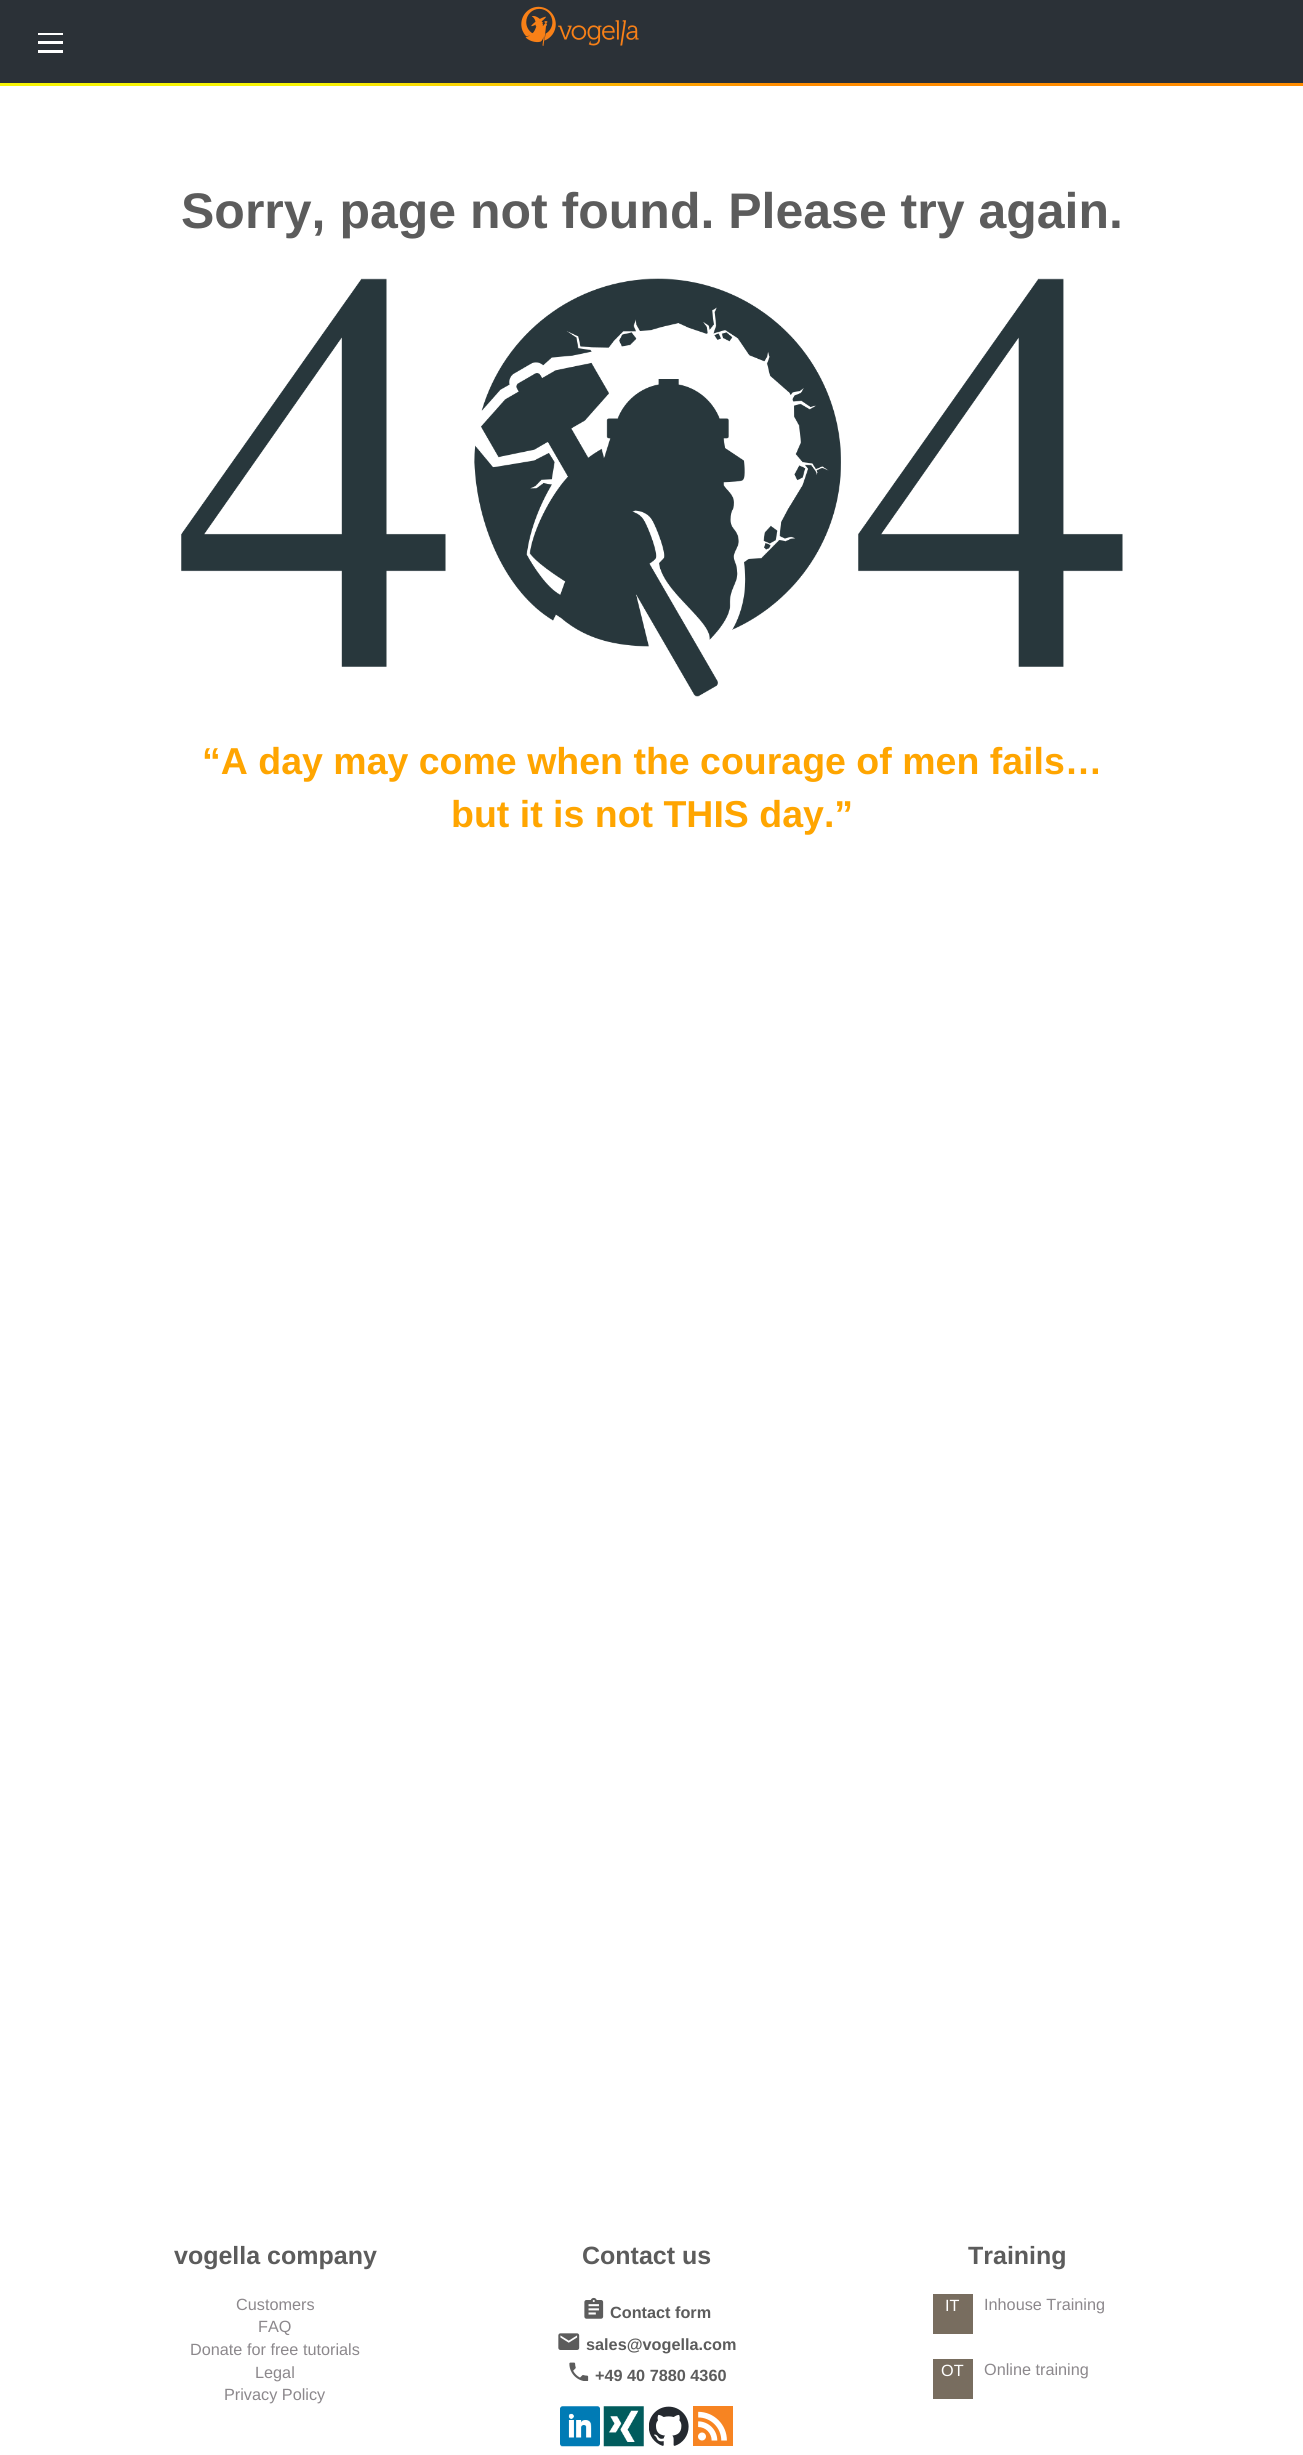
#include <cairo.h>
#include <math.h>
#include <stddef.h>

static cairo_t *ctx;

static void use_color(int r, int g, int b) {
    cairo_set_source_rgb(ctx, r / 255.0, g / 255.0, b / 255.0);
}

static void picture(const char *path, double x, double y, double w, double h) {
    cairo_surface_t *image = cairo_image_surface_create_from_png(path);
    cairo_save(ctx);
    cairo_set_source_surface(ctx, image, x, y);
    cairo_rectangle(ctx, x, y, w, h);
    cairo_fill(ctx);
    cairo_restore(ctx);
    cairo_surface_destroy(image);
}

int main(void) {
    cairo_surface_t *surface = cairo_image_surface_create(CAIRO_FORMAT_RGB24, 1303, 2455);
    ctx = cairo_create(surface);
    cairo_font_options_t *options = cairo_font_options_create();
    cairo_font_options_set_hint_metrics(options, CAIRO_HINT_METRICS_OFF);
    cairo_font_options_set_hint_style(options, CAIRO_HINT_STYLE_NONE);
    cairo_set_font_options(ctx, options);
    cairo_set_miter_limit(ctx, 4);
    cairo_pattern_t *gradient;
    use_color(255, 255, 255);
    cairo_paint(ctx);
    use_color(43, 49, 55);
    cairo_rectangle(ctx, 0, 0, 1303, 83);
    cairo_fill(ctx);
    use_color(255, 255, 255);
    cairo_rectangle(ctx, 38, 33, 25, 2);
    cairo_fill(ctx);
    cairo_rectangle(ctx, 38, 41, 25, 3);
    cairo_fill(ctx);
    cairo_rectangle(ctx, 38, 50, 25, 3);
    cairo_fill(ctx);
    picture("img1.png", 521, 6, 118, 40);
    gradient = cairo_pattern_create_linear(0, 84, 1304, 84);
    cairo_pattern_add_color_stop_rgba(gradient, 0.24, 0.969, 0.957, 0.024, 1);
    cairo_pattern_add_color_stop_rgba(gradient, 0.6, 1, 0.549, 0, 1);
    cairo_set_source(ctx, gradient);
    cairo_pattern_destroy(gradient);
    cairo_rectangle(ctx, 0, 83, 1303, 3);
    cairo_fill(ctx);
    cairo_select_font_face(ctx, "Liberation Sans", CAIRO_FONT_SLANT_NORMAL, CAIRO_FONT_WEIGHT_BOLD);
    cairo_set_font_size(ctx, 50);
    use_color(92, 92, 92);
    cairo_move_to(ctx, 181, 228);
    cairo_show_text(ctx, "Sorry, page not found. Please try again.");
    picture("img2.png", 181, 278, 942, 419);
    cairo_set_font_size(ctx, 37.5);
    use_color(255, 165, 0);
    cairo_move_to(ctx, 202, 774);
    cairo_show_text(ctx, "“A day may come when the courage of men fails…");
    cairo_move_to(ctx, 451, 827);
    cairo_show_text(ctx, "but it is not THIS day.”");
    cairo_set_font_size(ctx, 25);
    use_color(92, 92, 92);
    cairo_move_to(ctx, 174, 2264);
    cairo_show_text(ctx, "vogella company");
    cairo_select_font_face(ctx, "Liberation Sans", CAIRO_FONT_SLANT_NORMAL, CAIRO_FONT_WEIGHT_NORMAL);
    cairo_set_font_size(ctx, 16.25);
    use_color(140, 136, 140);
    cairo_move_to(ctx, 236, 2310);
    cairo_show_text(ctx, "Customers");
    cairo_move_to(ctx, 258, 2332);
    cairo_show_text(ctx, "FAQ");
    cairo_move_to(ctx, 190, 2355);
    cairo_show_text(ctx, "Donate for free tutorials");
    cairo_move_to(ctx, 255, 2378);
    cairo_show_text(ctx, "Legal");
    cairo_move_to(ctx, 224, 2400);
    cairo_show_text(ctx, "Privacy Policy");
    cairo_select_font_face(ctx, "Liberation Sans", CAIRO_FONT_SLANT_NORMAL, CAIRO_FONT_WEIGHT_BOLD);
    cairo_set_font_size(ctx, 25);
    use_color(92, 92, 92);
    cairo_move_to(ctx, 582, 2264);
    cairo_show_text(ctx, "Contact us");
    picture("img3.png", 584, 2297, 20, 22);
    cairo_set_font_size(ctx, 16.25);
    cairo_move_to(ctx, 610, 2318);
    cairo_show_text(ctx, "Contact form");
    picture("img4.png", 558, 2333, 22, 17);
    cairo_move_to(ctx, 586, 2350);
    cairo_show_text(ctx, "sales@vogella.com");
    picture("img5.png", 569, 2362, 20, 19);
    cairo_move_to(ctx, 595, 2381);
    cairo_show_text(ctx, "+49 40 7880 4360");
    picture("img6.png", 560, 2406, 40, 41);
    picture("img7.png", 603, 2406, 41, 41);
    picture("img8.png", 649, 2406, 40, 40);
    picture("img9.png", 693, 2406, 40, 40);
    cairo_set_font_size(ctx, 25);
    cairo_move_to(ctx, 968, 2264);
    cairo_show_text(ctx, "Training");
    use_color(120, 109, 95);
    cairo_rectangle(ctx, 933, 2294, 40, 40);
    cairo_fill(ctx);
    cairo_select_font_face(ctx, "Liberation Sans", CAIRO_FONT_SLANT_NORMAL, CAIRO_FONT_WEIGHT_NORMAL);
    cairo_set_font_size(ctx, 16.25);
    use_color(255, 255, 255);
    cairo_move_to(ctx, 945, 2311);
    cairo_show_text(ctx, "IT");
    use_color(140, 136, 140);
    cairo_move_to(ctx, 984, 2310);
    cairo_show_text(ctx, "Inhouse Training");
    use_color(120, 109, 95);
    cairo_rectangle(ctx, 933, 2359, 40, 40);
    cairo_fill(ctx);
    use_color(255, 255, 255);
    cairo_move_to(ctx, 941, 2376);
    cairo_show_text(ctx, "OT");
    use_color(140, 136, 140);
    cairo_move_to(ctx, 984, 2375);
    cairo_show_text(ctx, "Online training");
    cairo_surface_write_to_png(surface, "result.png");
    cairo_font_options_destroy(options);
    cairo_destroy(ctx);
    cairo_surface_destroy(surface);
    return 0;
}
